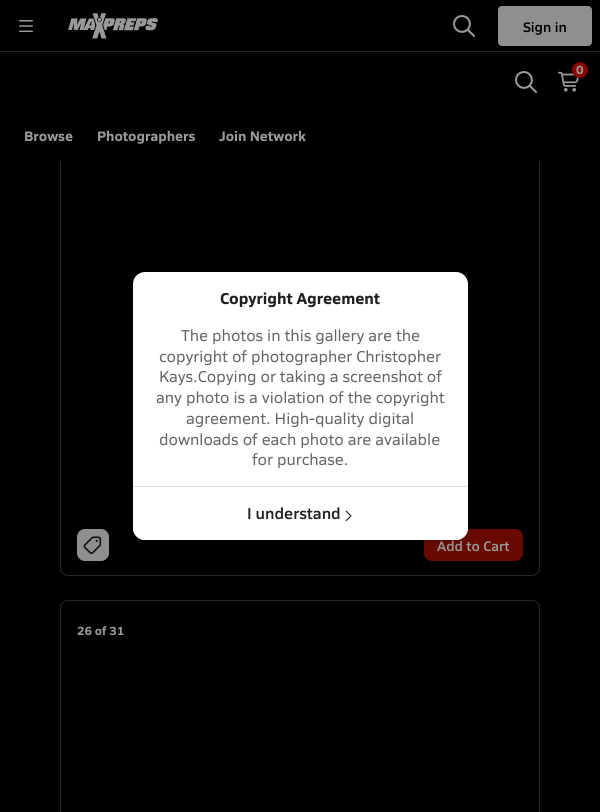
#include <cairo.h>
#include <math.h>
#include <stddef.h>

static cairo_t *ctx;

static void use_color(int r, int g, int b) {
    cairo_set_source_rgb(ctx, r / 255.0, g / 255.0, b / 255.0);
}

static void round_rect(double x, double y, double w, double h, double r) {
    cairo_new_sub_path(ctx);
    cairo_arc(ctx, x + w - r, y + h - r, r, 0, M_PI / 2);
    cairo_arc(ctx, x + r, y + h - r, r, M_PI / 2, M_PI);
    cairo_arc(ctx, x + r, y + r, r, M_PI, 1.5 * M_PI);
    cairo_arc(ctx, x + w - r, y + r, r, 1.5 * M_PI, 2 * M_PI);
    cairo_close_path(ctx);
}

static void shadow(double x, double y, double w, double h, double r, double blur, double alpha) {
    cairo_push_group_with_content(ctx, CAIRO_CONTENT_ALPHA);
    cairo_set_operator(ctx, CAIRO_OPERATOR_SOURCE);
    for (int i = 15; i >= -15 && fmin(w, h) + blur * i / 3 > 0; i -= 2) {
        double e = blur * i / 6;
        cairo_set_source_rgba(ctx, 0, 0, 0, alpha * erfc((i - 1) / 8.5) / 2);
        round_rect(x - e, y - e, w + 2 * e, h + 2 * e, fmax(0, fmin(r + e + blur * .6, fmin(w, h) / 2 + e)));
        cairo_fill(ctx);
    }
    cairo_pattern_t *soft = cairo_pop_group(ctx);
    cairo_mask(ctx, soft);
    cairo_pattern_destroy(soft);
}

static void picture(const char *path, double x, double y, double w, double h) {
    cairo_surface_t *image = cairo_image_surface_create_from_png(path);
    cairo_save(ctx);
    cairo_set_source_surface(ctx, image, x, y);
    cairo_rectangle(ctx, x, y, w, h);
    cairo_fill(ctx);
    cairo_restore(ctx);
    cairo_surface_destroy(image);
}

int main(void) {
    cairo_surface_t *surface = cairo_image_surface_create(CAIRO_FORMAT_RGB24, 600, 812);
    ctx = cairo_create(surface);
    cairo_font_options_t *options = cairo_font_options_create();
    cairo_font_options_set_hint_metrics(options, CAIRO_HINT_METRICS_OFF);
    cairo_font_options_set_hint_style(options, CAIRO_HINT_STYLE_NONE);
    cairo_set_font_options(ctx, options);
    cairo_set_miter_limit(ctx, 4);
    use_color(0, 0, 0);
    cairo_paint(ctx);
    round_rect(60.5, -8.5, 479, 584, 7.5);
    use_color(37, 38, 38);
    cairo_set_line_width(ctx, 1);
    cairo_stroke(ctx);
    use_color(0, 0, 0);
    cairo_rectangle(ctx, 60, 0, 480, 51);
    cairo_fill(ctx);
    picture("img1.png", 19, 20, 14, 12);
    picture("img2.png", 68, 13, 90, 26);
    picture("img3.png", 453, 15, 22, 22);
    use_color(142, 143, 145);
    round_rect(498.5, 6.5, 93, 39, 3.5);
    cairo_fill_preserve(ctx);
    cairo_stroke(ctx);
    cairo_select_font_face(ctx, "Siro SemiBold", CAIRO_FONT_SLANT_NORMAL, CAIRO_FONT_WEIGHT_NORMAL);
    cairo_set_font_size(ctx, 14);
    use_color(0, 0, 0);
    cairo_move_to(ctx, 523, 32);
    cairo_show_text(ctx, "Sign in");
    use_color(31, 31, 31);
    cairo_rectangle(ctx, 0, 51, 600, 1);
    cairo_fill(ctx);
    use_color(0, 0, 0);
    cairo_rectangle(ctx, 60, 52, 480, 110);
    cairo_fill(ctx);
    picture("img4.png", 558, 71, 21, 21);
    use_color(135, 3, 0);
    cairo_arc(ctx, 580, 70, 8, 0, 2 * M_PI);
    cairo_fill(ctx);
    cairo_select_font_face(ctx, "Siro", CAIRO_FONT_SLANT_NORMAL, CAIRO_FONT_WEIGHT_BOLD);
    cairo_set_font_size(ctx, 12);
    use_color(153, 153, 153);
    cairo_move_to(ctx, 576, 74);
    cairo_show_text(ctx, "0");
    picture("img3.png", 515, 71, 22, 22);
    cairo_set_font_size(ctx, 14);
    cairo_move_to(ctx, 24, 141);
    cairo_show_text(ctx, "Browse");
    cairo_move_to(ctx, 97, 141);
    cairo_show_text(ctx, "Photographers");
    cairo_move_to(ctx, 219, 141);
    cairo_show_text(ctx, "Join Network");
    use_color(142, 143, 145);
    round_rect(77.5, 529.5, 31, 31, 7.5);
    cairo_fill_preserve(ctx);
    cairo_stroke(ctx);
    picture("img5.png", 83, 536, 19, 19);
    use_color(104, 10, 0);
    round_rect(424.5, 529.5, 98, 31, 7.5);
    cairo_fill_preserve(ctx);
    cairo_stroke(ctx);
    cairo_select_font_face(ctx, "Siro SemiBold", CAIRO_FONT_SLANT_NORMAL, CAIRO_FONT_WEIGHT_NORMAL);
    use_color(153, 153, 153);
    cairo_move_to(ctx, 437, 551);
    cairo_show_text(ctx, "Add to Cart");
    round_rect(60.5, 600.5, 479, 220, 7.5);
    use_color(37, 38, 38);
    cairo_stroke(ctx);
    cairo_select_font_face(ctx, "Siro", CAIRO_FONT_SLANT_NORMAL, CAIRO_FONT_WEIGHT_BOLD);
    cairo_set_font_size(ctx, 12);
    use_color(153, 153, 153);
    cairo_move_to(ctx, 77, 635);
    cairo_show_text(ctx, "26 of 31");
    use_color(0, 0, 0);
    shadow(133, 276, 335, 268, 12, 5, 0.1);
    use_color(255, 255, 255);
    round_rect(133, 272, 335, 268, 12);
    cairo_fill(ctx);
    cairo_set_font_size(ctx, 16);
    use_color(33, 32, 33);
    cairo_move_to(ctx, 220, 304);
    cairo_show_text(ctx, "Copyright Agreement");
    cairo_select_font_face(ctx, "Siro", CAIRO_FONT_SLANT_NORMAL, CAIRO_FONT_WEIGHT_NORMAL);
    use_color(101, 102, 103);
    cairo_move_to(ctx, 181, 341);
    cairo_show_text(ctx, "The photos in this gallery are the");
    cairo_move_to(ctx, 159, 362);
    cairo_show_text(ctx, "copyright of photographer Christopher");
    cairo_move_to(ctx, 159, 382);
    cairo_show_text(ctx, "Kays.Copying or taking a screenshot of");
    cairo_move_to(ctx, 156, 403);
    cairo_show_text(ctx, "any photo is a violation of the copyright");
    cairo_move_to(ctx, 186, 424);
    cairo_show_text(ctx, "agreement. High-quality digital");
    cairo_move_to(ctx, 159, 445);
    cairo_show_text(ctx, "downloads of each photo are available");
    cairo_move_to(ctx, 252, 465);
    cairo_show_text(ctx, "for purchase.");
    use_color(255, 255, 255);
    cairo_new_path(ctx);
    cairo_move_to(ctx, 133, 486);
    cairo_line_to(ctx, 468, 486);
    cairo_line_to(ctx, 468, 528);
    cairo_curve_to(ctx, 468, 534.5, 462.5, 540, 456, 540);
    cairo_line_to(ctx, 145, 540);
    cairo_curve_to(ctx, 138.5, 540, 133, 534.5, 133, 528);
    cairo_close_path(ctx);
    cairo_fill(ctx);
    use_color(217, 219, 222);
    cairo_rectangle(ctx, 133, 486, 335, 1);
    cairo_fill(ctx);
    cairo_select_font_face(ctx, "Siro SemiBold", CAIRO_FONT_SLANT_NORMAL, CAIRO_FONT_WEIGHT_NORMAL);
    use_color(33, 32, 33);
    cairo_move_to(ctx, 247, 519);
    cairo_show_text(ctx, "I understand");
    picture("img6.png", 345, 510, 7, 12);
    cairo_surface_write_to_png(surface, "result.png");
    cairo_font_options_destroy(options);
    cairo_destroy(ctx);
    cairo_surface_destroy(surface);
    return 0;
}
